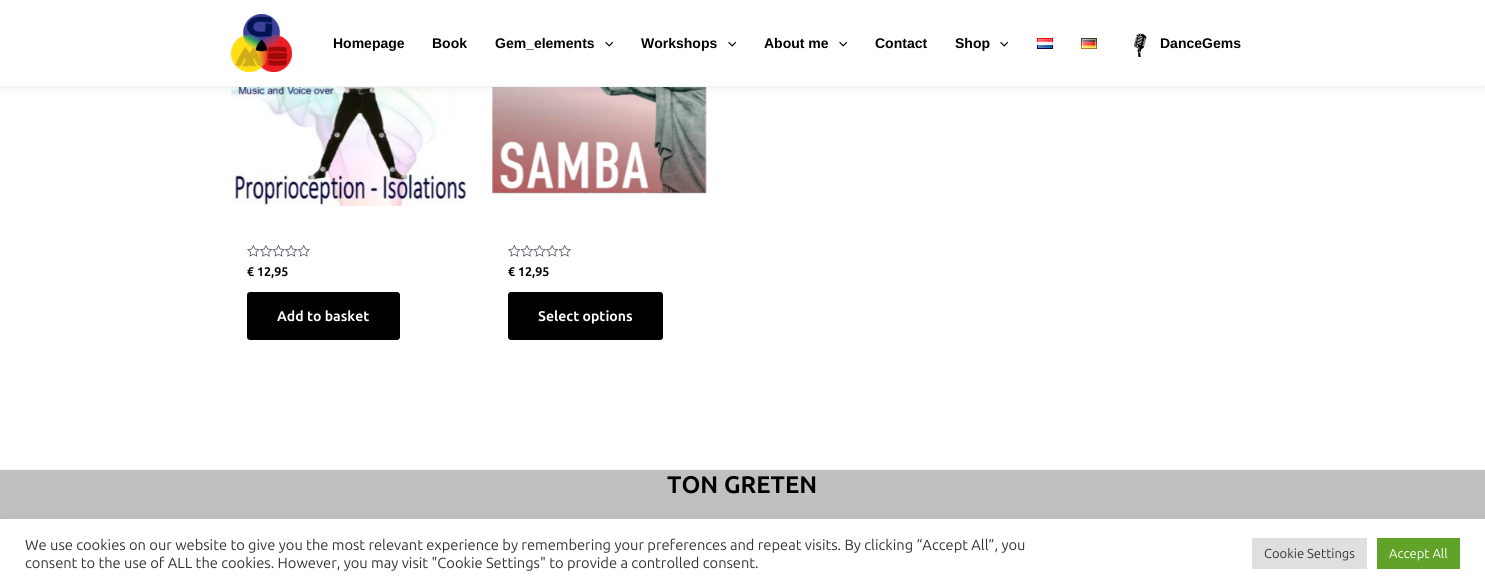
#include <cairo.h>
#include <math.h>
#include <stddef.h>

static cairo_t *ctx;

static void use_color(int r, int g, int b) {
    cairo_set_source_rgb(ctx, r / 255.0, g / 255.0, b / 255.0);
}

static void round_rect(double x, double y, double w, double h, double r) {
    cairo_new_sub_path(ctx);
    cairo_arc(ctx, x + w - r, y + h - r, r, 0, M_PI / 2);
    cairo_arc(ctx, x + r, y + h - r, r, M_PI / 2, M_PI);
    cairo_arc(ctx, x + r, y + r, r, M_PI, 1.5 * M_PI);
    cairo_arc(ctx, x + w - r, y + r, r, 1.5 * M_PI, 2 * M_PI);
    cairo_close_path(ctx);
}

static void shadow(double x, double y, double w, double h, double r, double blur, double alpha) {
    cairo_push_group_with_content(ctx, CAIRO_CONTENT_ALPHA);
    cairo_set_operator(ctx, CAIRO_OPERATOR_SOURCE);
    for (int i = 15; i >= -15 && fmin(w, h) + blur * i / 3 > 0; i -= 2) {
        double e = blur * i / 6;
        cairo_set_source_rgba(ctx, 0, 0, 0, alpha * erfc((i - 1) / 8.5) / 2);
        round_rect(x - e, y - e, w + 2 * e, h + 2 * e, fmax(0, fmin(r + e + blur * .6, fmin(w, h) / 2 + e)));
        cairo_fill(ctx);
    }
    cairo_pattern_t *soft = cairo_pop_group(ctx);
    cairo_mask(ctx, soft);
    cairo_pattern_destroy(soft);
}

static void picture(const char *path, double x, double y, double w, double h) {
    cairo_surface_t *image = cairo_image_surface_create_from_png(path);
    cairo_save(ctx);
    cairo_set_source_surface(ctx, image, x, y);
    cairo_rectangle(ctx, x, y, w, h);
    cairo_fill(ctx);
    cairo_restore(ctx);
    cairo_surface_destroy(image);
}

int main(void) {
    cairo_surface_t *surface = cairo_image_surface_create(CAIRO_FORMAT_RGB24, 1485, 588);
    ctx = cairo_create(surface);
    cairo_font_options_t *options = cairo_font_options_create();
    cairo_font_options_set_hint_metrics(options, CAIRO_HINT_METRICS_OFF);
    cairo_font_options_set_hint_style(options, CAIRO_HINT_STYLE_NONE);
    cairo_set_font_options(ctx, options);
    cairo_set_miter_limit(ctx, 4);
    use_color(255, 255, 255);
    cairo_paint(ctx);
    picture("img7.png", 231, 87, 241, 119);
    picture("img9.png", 492, 87, 215, 107);
    use_color(36, 50, 66);
    shadow(0, 2, 1485, 87, 0, 5, 0.07);
    use_color(255, 255, 255);
    cairo_rectangle(ctx, 0, 0, 1485, 86);
    cairo_fill(ctx);
    use_color(242, 245, 247);
    cairo_rectangle(ctx, 0, 86, 1485, 1);
    cairo_fill(ctx);
    picture("img1.png", 231, 14, 61, 58);
    cairo_select_font_face(ctx, "Liberation Sans", CAIRO_FONT_SLANT_NORMAL, CAIRO_FONT_WEIGHT_BOLD);
    cairo_set_font_size(ctx, 14);
    use_color(0, 0, 0);
    cairo_move_to(ctx, 333, 48);
    cairo_show_text(ctx, "Homepage");
    cairo_move_to(ctx, 432, 48);
    cairo_show_text(ctx, "Book");
    cairo_move_to(ctx, 495, 48);
    cairo_show_text(ctx, "Gem_elements");
    picture("img2.png", 605, 41, 8, 6);
    cairo_move_to(ctx, 641, 48);
    cairo_show_text(ctx, "Workshops");
    picture("img2.png", 728, 41, 8, 6);
    cairo_move_to(ctx, 764, 48);
    cairo_show_text(ctx, "About me");
    picture("img2.png", 839, 41, 8, 6);
    cairo_move_to(ctx, 875, 48);
    cairo_show_text(ctx, "Contact");
    cairo_move_to(ctx, 955, 48);
    cairo_show_text(ctx, "Shop");
    picture("img3.png", 1000, 41, 9, 6);
    picture("img4.png", 1037, 38, 16, 11);
    picture("img5.png", 1081, 38, 16, 11);
    picture("img6.png", 1134, 33, 13, 24);
    cairo_move_to(ctx, 1160, 48);
    cairo_show_text(ctx, "DanceGems");
    picture("img8.png", 247, 245, 63, 12);
    cairo_select_font_face(ctx, "Ubuntu", CAIRO_FONT_SLANT_NORMAL, CAIRO_FONT_WEIGHT_BOLD);
    cairo_set_font_size(ctx, 12.5);
    cairo_move_to(ctx, 247, 276);
    cairo_show_text(ctx, "€ 12,95");
    round_rect(247, 292, 153, 48, 3);
    cairo_fill(ctx);
    cairo_set_font_size(ctx, 14);
    use_color(255, 255, 255);
    cairo_move_to(ctx, 277, 321);
    cairo_show_text(ctx, "Add to basket");
    picture("img8.png", 508, 245, 63, 12);
    cairo_set_font_size(ctx, 12.5);
    use_color(0, 0, 0);
    cairo_move_to(ctx, 508, 276);
    cairo_show_text(ctx, "€ 12,95");
    round_rect(508, 292, 155, 48, 3);
    cairo_fill(ctx);
    cairo_set_font_size(ctx, 14);
    use_color(255, 255, 255);
    cairo_move_to(ctx, 538, 321);
    cairo_show_text(ctx, "Select options");
    use_color(192, 192, 192);
    cairo_rectangle(ctx, 0, 470, 1485, 49);
    cairo_fill(ctx);
    use_color(242, 245, 247);
    cairo_rectangle(ctx, 0, 469, 1485, 1);
    cairo_fill(ctx);
    cairo_set_font_size(ctx, 24);
    use_color(0, 0, 0);
    cairo_move_to(ctx, 667, 493);
    cairo_show_text(ctx, "TON GRETEN");
    use_color(172, 171, 171);
    shadow(0, 518, 1485, 69, 0, 5, 0.3);
    use_color(255, 255, 255);
    cairo_rectangle(ctx, 0, 519, 1485, 69);
    cairo_fill(ctx);
    cairo_select_font_face(ctx, "Ubuntu", CAIRO_FONT_SLANT_NORMAL, CAIRO_FONT_WEIGHT_NORMAL);
    cairo_set_font_size(ctx, 14.67);
    use_color(51, 51, 51);
    cairo_move_to(ctx, 25, 550);
    cairo_show_text(ctx, "We use cookies on our website to give you the most relevant experience by remembering your preferences and repeat visits. By clicking “Accept All”, you");
    cairo_move_to(ctx, 25, 568);
    cairo_show_text(ctx, "consent to the use of ALL the cookies. However, you may visit \"Cookie Settings\" to provide a controlled consent.");
    use_color(222, 223, 224);
    cairo_rectangle(ctx, 1252, 538, 115, 31);
    cairo_fill(ctx);
    cairo_set_font_size(ctx, 13);
    use_color(51, 51, 51);
    cairo_move_to(ctx, 1264, 558);
    cairo_show_text(ctx, "Cookie Settings");
    use_color(97, 162, 41);
    cairo_rectangle(ctx, 1377, 538, 83, 31);
    cairo_fill(ctx);
    use_color(255, 255, 255);
    cairo_move_to(ctx, 1389, 558);
    cairo_show_text(ctx, "Accept All");
    cairo_surface_write_to_png(surface, "result.png");
    cairo_font_options_destroy(options);
    cairo_destroy(ctx);
    cairo_surface_destroy(surface);
    return 0;
}
